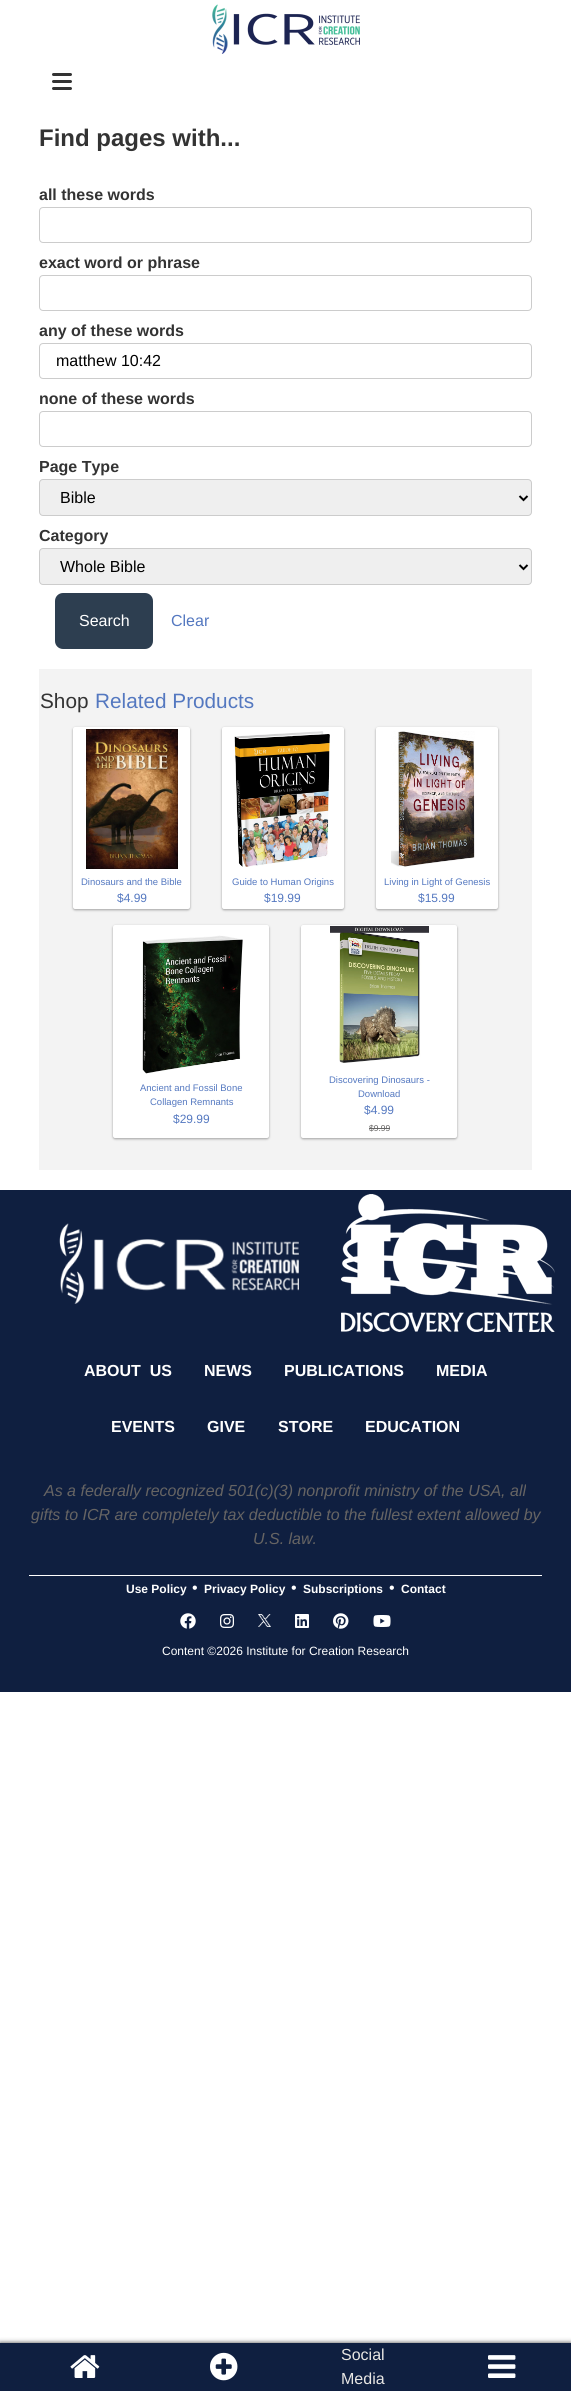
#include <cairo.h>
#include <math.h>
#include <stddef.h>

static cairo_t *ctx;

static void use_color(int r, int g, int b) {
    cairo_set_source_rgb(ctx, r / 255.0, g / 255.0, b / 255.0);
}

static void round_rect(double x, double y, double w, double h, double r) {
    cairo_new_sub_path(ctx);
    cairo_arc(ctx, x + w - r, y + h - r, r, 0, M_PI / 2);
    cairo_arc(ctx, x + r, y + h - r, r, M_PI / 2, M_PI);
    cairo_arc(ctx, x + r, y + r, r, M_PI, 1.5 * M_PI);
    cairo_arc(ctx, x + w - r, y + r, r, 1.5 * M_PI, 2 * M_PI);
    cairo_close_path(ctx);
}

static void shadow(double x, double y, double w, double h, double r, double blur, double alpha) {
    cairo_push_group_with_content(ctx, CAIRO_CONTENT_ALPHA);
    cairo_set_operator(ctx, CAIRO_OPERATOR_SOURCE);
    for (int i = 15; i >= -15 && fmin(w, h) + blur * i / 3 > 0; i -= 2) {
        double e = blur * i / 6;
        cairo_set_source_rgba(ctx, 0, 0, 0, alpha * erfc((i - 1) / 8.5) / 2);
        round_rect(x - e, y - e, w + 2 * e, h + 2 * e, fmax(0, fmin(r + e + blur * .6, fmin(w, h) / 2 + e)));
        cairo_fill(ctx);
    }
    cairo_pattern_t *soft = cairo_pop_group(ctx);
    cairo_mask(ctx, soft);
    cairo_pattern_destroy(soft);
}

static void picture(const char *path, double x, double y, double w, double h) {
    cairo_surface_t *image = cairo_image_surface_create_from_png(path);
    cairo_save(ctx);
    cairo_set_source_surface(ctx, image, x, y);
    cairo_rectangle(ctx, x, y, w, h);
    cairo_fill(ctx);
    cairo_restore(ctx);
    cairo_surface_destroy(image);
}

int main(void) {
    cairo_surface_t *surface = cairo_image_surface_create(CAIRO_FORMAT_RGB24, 571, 2391);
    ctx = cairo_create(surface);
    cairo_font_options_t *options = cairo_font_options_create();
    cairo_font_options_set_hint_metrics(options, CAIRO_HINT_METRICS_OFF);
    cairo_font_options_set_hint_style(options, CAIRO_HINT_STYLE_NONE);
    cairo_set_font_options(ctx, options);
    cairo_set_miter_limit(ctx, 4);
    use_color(255, 255, 255);
    cairo_paint(ctx);
    picture("img1.png", 212, 4, 148, 50);
    use_color(51, 51, 51);
    round_rect(52, 73, 20, 3, 1.5);
    cairo_fill(ctx);
    round_rect(52, 80, 20, 3, 1.5);
    cairo_fill(ctx);
    round_rect(52, 87, 20, 3, 1.5);
    cairo_fill(ctx);
    cairo_select_font_face(ctx, "Liberation Sans", CAIRO_FONT_SLANT_NORMAL, CAIRO_FONT_WEIGHT_BOLD);
    cairo_set_font_size(ctx, 24);
    cairo_move_to(ctx, 39, 146);
    cairo_show_text(ctx, "Find pages with...");
    cairo_set_font_size(ctx, 16);
    cairo_move_to(ctx, 39, 200);
    cairo_show_text(ctx, "all these words");
    round_rect(39.5, 207.5, 492, 35, 3.5);
    use_color(204, 204, 204);
    cairo_set_line_width(ctx, 1);
    cairo_stroke(ctx);
    use_color(51, 51, 51);
    cairo_move_to(ctx, 39, 268);
    cairo_show_text(ctx, "exact word or phrase");
    round_rect(39.5, 275.5, 492, 35, 3.5);
    use_color(204, 204, 204);
    cairo_stroke(ctx);
    use_color(51, 51, 51);
    cairo_move_to(ctx, 39, 336);
    cairo_show_text(ctx, "any of these words");
    round_rect(39.5, 343.5, 492, 35, 3.5);
    use_color(204, 204, 204);
    cairo_stroke(ctx);
    cairo_select_font_face(ctx, "Liberation Sans", CAIRO_FONT_SLANT_NORMAL, CAIRO_FONT_WEIGHT_NORMAL);
    use_color(0, 0, 0);
    cairo_move_to(ctx, 56, 366);
    cairo_show_text(ctx, "matthew 10:42");
    cairo_select_font_face(ctx, "Liberation Sans", CAIRO_FONT_SLANT_NORMAL, CAIRO_FONT_WEIGHT_BOLD);
    use_color(51, 51, 51);
    cairo_move_to(ctx, 39, 404);
    cairo_show_text(ctx, "none of these words");
    round_rect(39.5, 411.5, 492, 35, 3.5);
    use_color(204, 204, 204);
    cairo_stroke(ctx);
    use_color(51, 51, 51);
    cairo_move_to(ctx, 39, 472);
    cairo_show_text(ctx, "Page Type");
    use_color(239, 239, 239);
    round_rect(39.5, 479.5, 492, 36, 3.5);
    cairo_fill_preserve(ctx);
    use_color(204, 204, 204);
    cairo_stroke(ctx);
    cairo_new_path(ctx);
    cairo_move_to(ctx, 519.5, 496);
    cairo_line_to(ctx, 523.5, 500);
    cairo_line_to(ctx, 527.5, 496);
    use_color(0, 0, 0);
    cairo_set_line_width(ctx, 2);
    cairo_stroke(ctx);
    cairo_select_font_face(ctx, "Liberation Sans", CAIRO_FONT_SLANT_NORMAL, CAIRO_FONT_WEIGHT_NORMAL);
    cairo_move_to(ctx, 60, 503);
    cairo_show_text(ctx, "Bible");
    cairo_select_font_face(ctx, "Liberation Sans", CAIRO_FONT_SLANT_NORMAL, CAIRO_FONT_WEIGHT_BOLD);
    use_color(51, 51, 51);
    cairo_move_to(ctx, 39, 541);
    cairo_show_text(ctx, "Category");
    use_color(239, 239, 239);
    round_rect(39.5, 548.5, 492, 36, 3.5);
    cairo_fill_preserve(ctx);
    use_color(204, 204, 204);
    cairo_set_line_width(ctx, 1);
    cairo_stroke(ctx);
    cairo_new_path(ctx);
    cairo_move_to(ctx, 519.5, 565);
    cairo_line_to(ctx, 523.5, 569);
    cairo_line_to(ctx, 527.5, 565);
    use_color(0, 0, 0);
    cairo_set_line_width(ctx, 2);
    cairo_stroke(ctx);
    cairo_select_font_face(ctx, "Liberation Sans", CAIRO_FONT_SLANT_NORMAL, CAIRO_FONT_WEIGHT_NORMAL);
    cairo_move_to(ctx, 60, 572);
    cairo_show_text(ctx, "Whole Bible");
    use_color(45, 62, 80);
    round_rect(55, 593, 98, 56, 8);
    cairo_fill(ctx);
    use_color(255, 255, 255);
    cairo_move_to(ctx, 79, 626);
    cairo_show_text(ctx, "Search");
    use_color(84, 120, 192);
    cairo_move_to(ctx, 171, 626);
    cairo_show_text(ctx, "Clear");
    use_color(243, 243, 243);
    cairo_rectangle(ctx, 39, 669, 493, 501);
    cairo_fill(ctx);
    cairo_set_font_size(ctx, 20.75);
    use_color(51, 51, 51);
    cairo_move_to(ctx, 40, 708);
    cairo_show_text(ctx, "Shop");
    use_color(84, 120, 192);
    cairo_move_to(ctx, 95, 708);
    cairo_show_text(ctx, "Related Products");
    use_color(0, 0, 0);
    shadow(73, 728, 117, 182, 2, 1, 0.24);
    shadow(73, 728, 117, 182, 2, 1.5, 0.12);
    use_color(255, 255, 255);
    round_rect(73, 727, 117, 182, 2);
    cairo_fill(ctx);
    picture("img2.png", 86, 729, 92, 140);
    cairo_set_font_size(ctx, 9.5);
    use_color(84, 120, 192);
    cairo_move_to(ctx, 81, 885);
    cairo_show_text(ctx, "Dinosaurs and the Bible");
    cairo_set_font_size(ctx, 12);
    cairo_move_to(ctx, 117, 902);
    cairo_show_text(ctx, "$4.99");
    use_color(0, 0, 0);
    shadow(222, 728, 122, 182, 2, 1, 0.24);
    shadow(222, 728, 122, 182, 2, 1.5, 0.12);
    use_color(255, 255, 255);
    round_rect(222, 727, 122, 182, 2);
    cairo_fill(ctx);
    picture("img3.png", 234, 731, 96, 136);
    cairo_set_font_size(ctx, 9.5);
    use_color(84, 120, 192);
    cairo_move_to(ctx, 232, 885);
    cairo_show_text(ctx, "Guide to Human Origins");
    cairo_set_font_size(ctx, 12);
    cairo_move_to(ctx, 264, 902);
    cairo_show_text(ctx, "$19.99");
    use_color(0, 0, 0);
    shadow(376, 728, 122, 182, 2, 1, 0.24);
    shadow(376, 728, 122, 182, 2, 1.5, 0.12);
    use_color(255, 255, 255);
    round_rect(376, 727, 122, 182, 2);
    cairo_fill(ctx);
    picture("img4.png", 391, 731, 84, 136);
    cairo_set_font_size(ctx, 9.5);
    use_color(84, 120, 192);
    cairo_move_to(ctx, 384, 885);
    cairo_show_text(ctx, "Living in Light of Genesis");
    cairo_set_font_size(ctx, 12);
    cairo_move_to(ctx, 418, 902);
    cairo_show_text(ctx, "$15.99");
    use_color(0, 0, 0);
    shadow(113, 926, 156, 213, 2, 1, 0.24);
    shadow(113, 926, 156, 213, 2, 1.5, 0.12);
    use_color(255, 255, 255);
    round_rect(113, 925, 156, 213, 2);
    cairo_fill(ctx);
    picture("img5.png", 142, 935, 101, 139);
    cairo_set_font_size(ctx, 9.5);
    use_color(84, 120, 192);
    cairo_move_to(ctx, 140, 1091);
    cairo_show_text(ctx, "Ancient and Fossil Bone");
    cairo_move_to(ctx, 150, 1105);
    cairo_show_text(ctx, "Collagen Remnants");
    cairo_set_font_size(ctx, 12);
    cairo_move_to(ctx, 173, 1123);
    cairo_show_text(ctx, "$29.99");
    use_color(0, 0, 0);
    shadow(301, 926, 156, 213, 2, 1, 0.24);
    shadow(301, 926, 156, 213, 2, 1.5, 0.12);
    use_color(255, 255, 255);
    round_rect(301, 925, 156, 213, 2);
    cairo_fill(ctx);
    picture("img6.png", 330, 926, 99, 137);
    cairo_set_font_size(ctx, 9.5);
    use_color(84, 120, 192);
    cairo_move_to(ctx, 329, 1083);
    cairo_show_text(ctx, "Discovering Dinosaurs -");
    cairo_move_to(ctx, 358, 1097);
    cairo_show_text(ctx, "Download");
    cairo_set_font_size(ctx, 12);
    cairo_move_to(ctx, 364, 1114);
    cairo_show_text(ctx, "$4.99");
    cairo_set_font_size(ctx, 8.5);
    use_color(102, 100, 99);
    cairo_move_to(ctx, 369, 1131);
    cairo_show_text(ctx, "$9.99");
    use_color(102, 102, 102);
    cairo_rectangle(ctx, 369, 1128, 21, 1);
    cairo_fill(ctx);
    use_color(15, 31, 64);
    cairo_rectangle(ctx, 0, 1190, 571, 502);
    cairo_fill(ctx);
    picture("img7.png", 59, 1223, 240, 81);
    picture("img8.png", 341, 1194, 214, 138);
    cairo_select_font_face(ctx, "Liberation Sans", CAIRO_FONT_SLANT_NORMAL, CAIRO_FONT_WEIGHT_BOLD);
    cairo_set_font_size(ctx, 16);
    use_color(255, 255, 255);
    cairo_move_to(ctx, 84, 1376);
    cairo_show_text(ctx, "ABOUT  US");
    cairo_move_to(ctx, 204, 1376);
    cairo_show_text(ctx, "NEWS");
    cairo_move_to(ctx, 284, 1376);
    cairo_show_text(ctx, "PUBLICATIONS");
    cairo_move_to(ctx, 436, 1376);
    cairo_show_text(ctx, "MEDIA");
    cairo_move_to(ctx, 111, 1432);
    cairo_show_text(ctx, "EVENTS");
    cairo_move_to(ctx, 207, 1432);
    cairo_show_text(ctx, "GIVE");
    cairo_move_to(ctx, 278, 1432);
    cairo_show_text(ctx, "STORE");
    cairo_move_to(ctx, 365, 1432);
    cairo_show_text(ctx, "EDUCATION");
    cairo_select_font_face(ctx, "Liberation Sans", CAIRO_FONT_SLANT_ITALIC, CAIRO_FONT_WEIGHT_NORMAL);
    use_color(102, 100, 99);
    cairo_move_to(ctx, 44, 1496);
    cairo_show_text(ctx, "As a federally recognized 501(c)(3) nonprofit ministry of the USA, all");
    cairo_move_to(ctx, 31, 1520);
    cairo_show_text(ctx, "gifts to ICR are completely tax deductible to the fullest extent allowed by");
    cairo_move_to(ctx, 253, 1544);
    cairo_show_text(ctx, "U.S. law.");
    use_color(255, 255, 255);
    cairo_rectangle(ctx, 29, 1575, 513, 1);
    cairo_fill(ctx);
    cairo_select_font_face(ctx, "Liberation Sans", CAIRO_FONT_SLANT_NORMAL, CAIRO_FONT_WEIGHT_BOLD);
    cairo_set_font_size(ctx, 12);
    cairo_move_to(ctx, 126, 1593);
    cairo_show_text(ctx, "Use Policy");
    cairo_select_font_face(ctx, "Liberation Sans", CAIRO_FONT_SLANT_NORMAL, CAIRO_FONT_WEIGHT_NORMAL);
    cairo_set_font_size(ctx, 16);
    cairo_move_to(ctx, 192, 1593);
    cairo_show_text(ctx, "•");
    cairo_select_font_face(ctx, "Liberation Sans", CAIRO_FONT_SLANT_NORMAL, CAIRO_FONT_WEIGHT_BOLD);
    cairo_set_font_size(ctx, 12);
    cairo_move_to(ctx, 204, 1593);
    cairo_show_text(ctx, "Privacy Policy");
    cairo_select_font_face(ctx, "Liberation Sans", CAIRO_FONT_SLANT_NORMAL, CAIRO_FONT_WEIGHT_NORMAL);
    cairo_set_font_size(ctx, 16);
    cairo_move_to(ctx, 291, 1593);
    cairo_show_text(ctx, "•");
    cairo_select_font_face(ctx, "Liberation Sans", CAIRO_FONT_SLANT_NORMAL, CAIRO_FONT_WEIGHT_BOLD);
    cairo_set_font_size(ctx, 12);
    cairo_move_to(ctx, 303, 1593);
    cairo_show_text(ctx, "Subscriptions");
    cairo_select_font_face(ctx, "Liberation Sans", CAIRO_FONT_SLANT_NORMAL, CAIRO_FONT_WEIGHT_NORMAL);
    cairo_set_font_size(ctx, 16);
    cairo_move_to(ctx, 389, 1593);
    cairo_show_text(ctx, "•");
    cairo_select_font_face(ctx, "Liberation Sans", CAIRO_FONT_SLANT_NORMAL, CAIRO_FONT_WEIGHT_BOLD);
    cairo_set_font_size(ctx, 12);
    cairo_move_to(ctx, 401, 1593);
    cairo_show_text(ctx, "Contact");
    picture("img9.png", 180, 1613, 16, 16);
    picture("img10.png", 220, 1614, 14, 14);
    picture("img11.png", 258, 1614, 13, 13);
    picture("img12.png", 295, 1614, 14, 14);
    picture("img13.png", 333, 1613, 16, 16);
    picture("img14.png", 373, 1615, 18, 12);
    cairo_select_font_face(ctx, "Liberation Sans", CAIRO_FONT_SLANT_NORMAL, CAIRO_FONT_WEIGHT_NORMAL);
    cairo_move_to(ctx, 162, 1655);
    cairo_show_text(ctx, "Content ©2026 Institute for Creation Research");
    use_color(0, 0, 0);
    shadow(0, 2343, 571, 48, 0, 2.5, 0.75);
    use_color(15, 31, 64);
    cairo_rectangle(ctx, 0, 2343, 571, 48);
    cairo_fill(ctx);
    picture("img15.png", 70, 2355, 30, 23);
    picture("img16.png", 210, 2352, 28, 29);
    cairo_set_font_size(ctx, 16);
    use_color(232, 230, 227);
    cairo_move_to(ctx, 341, 2360);
    cairo_show_text(ctx, "Social");
    cairo_move_to(ctx, 341, 2384);
    cairo_show_text(ctx, "Media");
    picture("img17.png", 488, 2355, 28, 23);
    cairo_surface_write_to_png(surface, "result.png");
    cairo_font_options_destroy(options);
    cairo_destroy(ctx);
    cairo_surface_destroy(surface);
    return 0;
}
